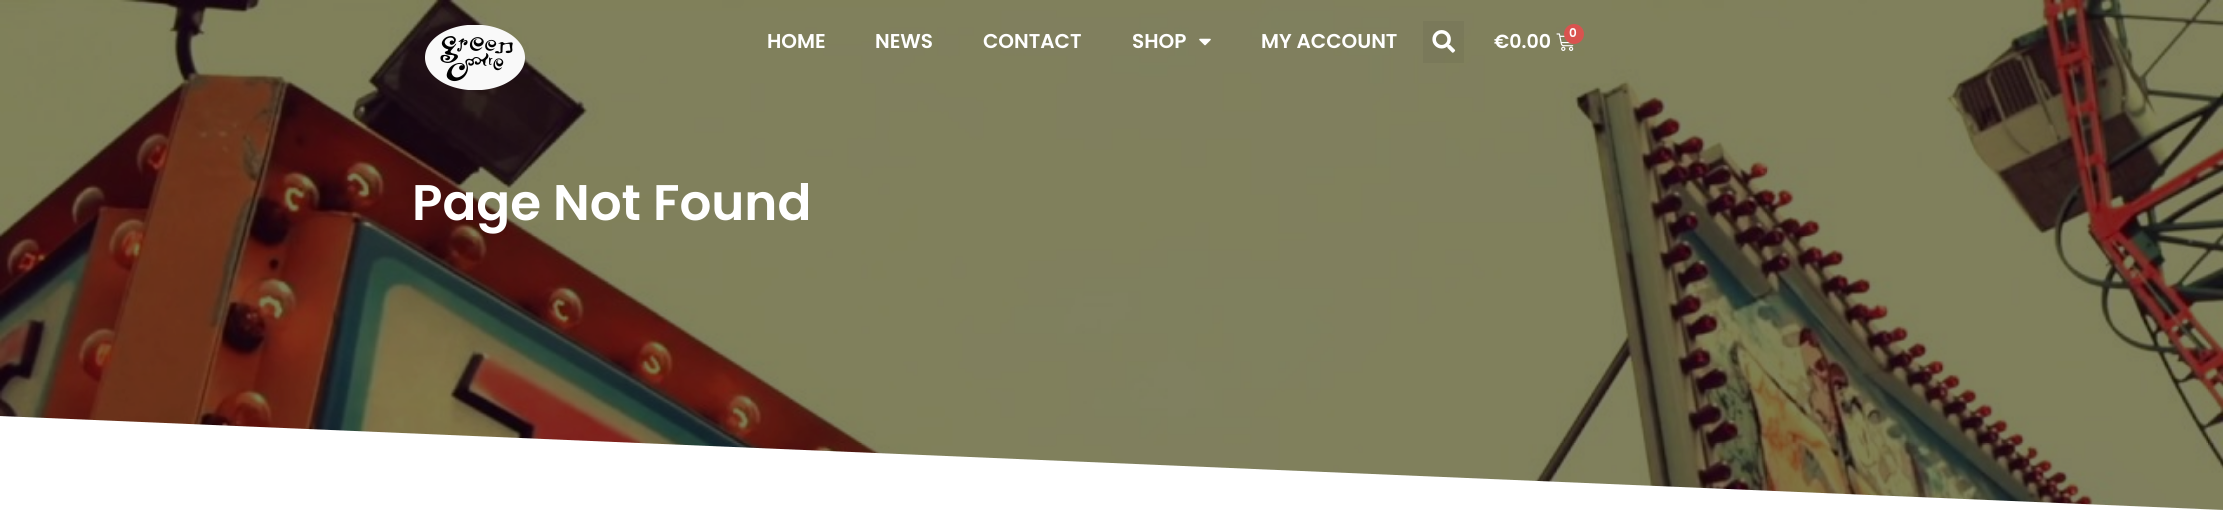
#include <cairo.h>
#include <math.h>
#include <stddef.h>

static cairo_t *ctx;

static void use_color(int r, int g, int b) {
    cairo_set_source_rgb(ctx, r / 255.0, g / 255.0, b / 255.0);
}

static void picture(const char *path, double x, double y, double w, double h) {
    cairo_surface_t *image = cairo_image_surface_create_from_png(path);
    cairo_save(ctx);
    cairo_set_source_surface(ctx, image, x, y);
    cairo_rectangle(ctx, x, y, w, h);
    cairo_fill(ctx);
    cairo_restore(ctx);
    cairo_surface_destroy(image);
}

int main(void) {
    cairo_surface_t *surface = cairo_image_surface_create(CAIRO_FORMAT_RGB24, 2223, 515);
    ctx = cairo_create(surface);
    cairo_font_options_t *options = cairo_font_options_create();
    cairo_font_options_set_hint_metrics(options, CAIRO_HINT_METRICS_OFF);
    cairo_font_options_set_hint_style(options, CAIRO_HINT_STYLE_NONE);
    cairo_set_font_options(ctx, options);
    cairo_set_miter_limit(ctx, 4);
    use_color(255, 255, 255);
    cairo_paint(ctx);
    picture("img5.png", 0, 0, 2223, 510);
    picture("img1.png", 425, 25, 100, 65);
    cairo_select_font_face(ctx, "Poppins SemiBold", CAIRO_FONT_SLANT_NORMAL, CAIRO_FONT_WEIGHT_NORMAL);
    cairo_set_font_size(ctx, 20);
    use_color(255, 255, 255);
    cairo_move_to(ctx, 767, 48);
    cairo_show_text(ctx, "HOME");
    cairo_move_to(ctx, 875, 48);
    cairo_show_text(ctx, "NEWS");
    cairo_move_to(ctx, 983, 48);
    cairo_show_text(ctx, "CONTACT");
    cairo_move_to(ctx, 1132, 48);
    cairo_show_text(ctx, "SHOP");
    picture("img2.png", 1199, 38, 12, 8);
    cairo_move_to(ctx, 1261, 48);
    cairo_show_text(ctx, "MY ACCOUNT");
    cairo_set_source_rgba(ctx, 0, 0, 0, 0.05);
    cairo_rectangle(ctx, 1423, 21, 41, 42);
    cairo_fill(ctx);
    picture("img3.png", 1432, 30, 24, 23);
    picture("img4.png", 1556, 33, 18, 18);
    use_color(217, 83, 79);
    cairo_arc(ctx, 1574, 34, 10, 0, 2 * M_PI);
    cairo_fill(ctx);
    cairo_set_font_size(ctx, 12);
    use_color(255, 255, 255);
    cairo_move_to(ctx, 1569, 37);
    cairo_show_text(ctx, "0");
    cairo_set_font_size(ctx, 19);
    cairo_move_to(ctx, 1494, 48);
    cairo_show_text(ctx, "€0.00");
    cairo_set_font_size(ctx, 50);
    cairo_move_to(ctx, 412, 220);
    cairo_show_text(ctx, "Page Not Found");
    cairo_new_path(ctx);
    cairo_move_to(ctx, 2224, 510);
    cairo_line_to(ctx, 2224, 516);
    cairo_line_to(ctx, -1, 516);
    cairo_line_to(ctx, -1, 416);
    cairo_close_path(ctx);
    cairo_fill(ctx);
    cairo_surface_write_to_png(surface, "result.png");
    cairo_font_options_destroy(options);
    cairo_destroy(ctx);
    cairo_surface_destroy(surface);
    return 0;
}
